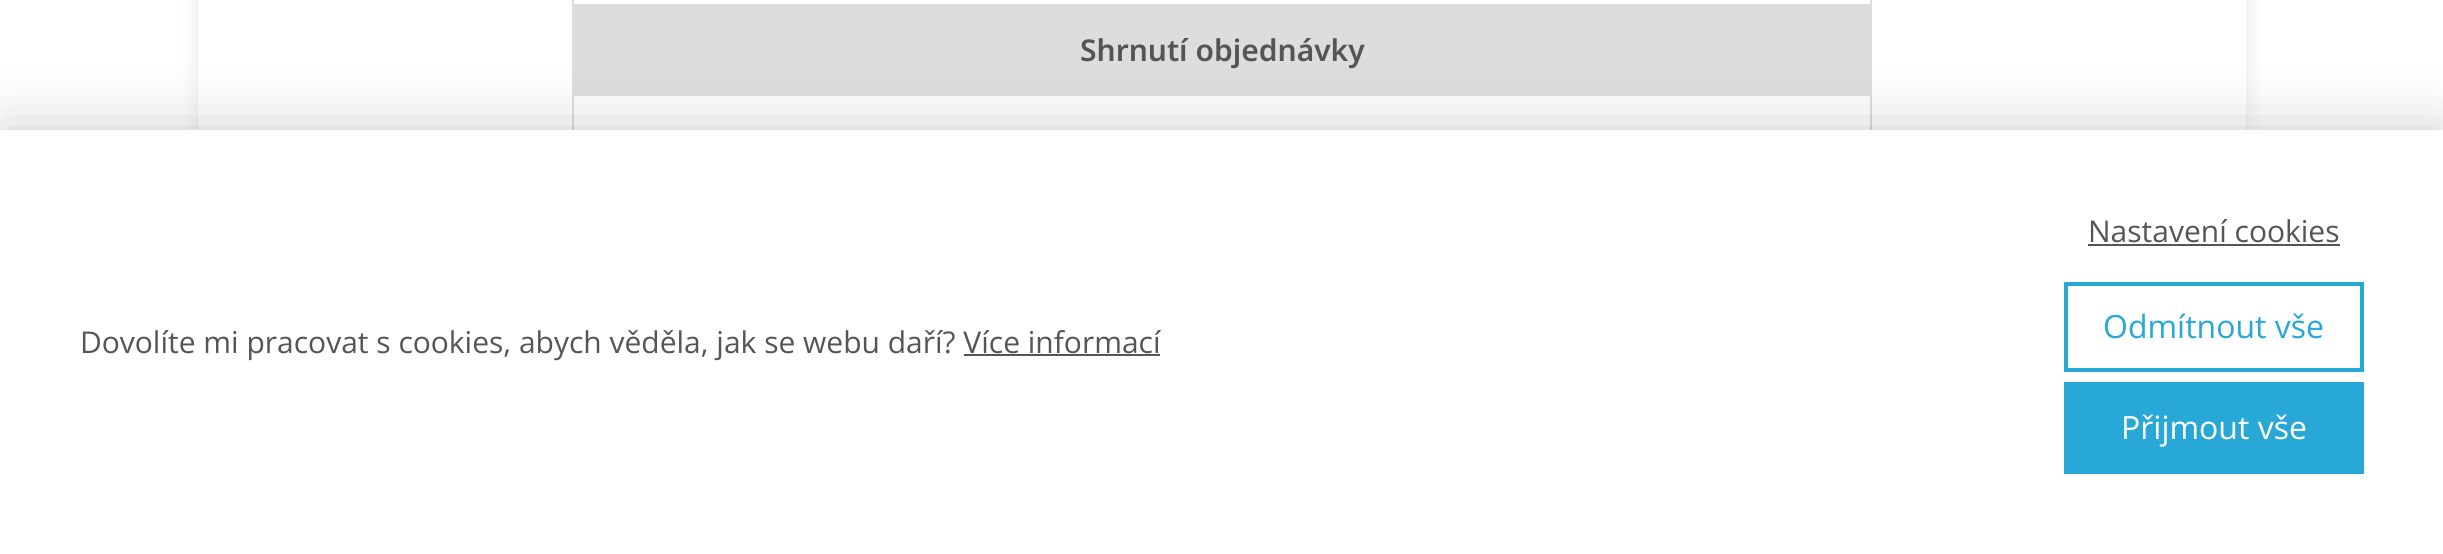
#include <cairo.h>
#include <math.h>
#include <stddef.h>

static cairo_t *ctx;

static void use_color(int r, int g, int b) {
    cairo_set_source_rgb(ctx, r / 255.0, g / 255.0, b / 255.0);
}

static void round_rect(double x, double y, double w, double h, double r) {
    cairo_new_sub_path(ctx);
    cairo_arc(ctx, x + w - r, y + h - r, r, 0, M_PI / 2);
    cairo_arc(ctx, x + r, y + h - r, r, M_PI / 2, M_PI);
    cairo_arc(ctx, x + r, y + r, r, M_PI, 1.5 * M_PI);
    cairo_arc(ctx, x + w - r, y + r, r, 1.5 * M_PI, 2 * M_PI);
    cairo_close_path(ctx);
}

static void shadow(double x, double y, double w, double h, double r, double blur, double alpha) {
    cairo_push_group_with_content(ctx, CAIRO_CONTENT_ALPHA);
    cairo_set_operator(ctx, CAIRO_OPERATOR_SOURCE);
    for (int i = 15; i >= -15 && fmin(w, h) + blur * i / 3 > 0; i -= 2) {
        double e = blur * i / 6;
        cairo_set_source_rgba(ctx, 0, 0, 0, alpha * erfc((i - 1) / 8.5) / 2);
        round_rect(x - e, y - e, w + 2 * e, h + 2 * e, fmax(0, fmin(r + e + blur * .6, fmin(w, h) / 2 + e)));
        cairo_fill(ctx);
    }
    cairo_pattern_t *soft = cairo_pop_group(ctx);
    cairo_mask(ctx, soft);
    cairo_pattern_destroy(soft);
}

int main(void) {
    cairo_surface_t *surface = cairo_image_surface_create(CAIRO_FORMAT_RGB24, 2443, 554);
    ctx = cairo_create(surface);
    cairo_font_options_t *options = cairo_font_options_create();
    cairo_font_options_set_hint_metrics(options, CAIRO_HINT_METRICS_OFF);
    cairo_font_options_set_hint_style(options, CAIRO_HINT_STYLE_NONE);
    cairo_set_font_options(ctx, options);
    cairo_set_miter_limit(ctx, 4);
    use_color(255, 255, 255);
    cairo_paint(ctx);
    cairo_save(ctx);
    cairo_set_fill_rule(ctx, CAIRO_FILL_RULE_EVEN_ODD);
    cairo_new_path(ctx);
    cairo_move_to(ctx, 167, 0);
    cairo_line_to(ctx, 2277, 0);
    cairo_line_to(ctx, 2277, 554);
    cairo_line_to(ctx, 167, 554);
    cairo_close_path(ctx);
    cairo_move_to(ctx, 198, -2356);
    cairo_line_to(ctx, 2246, -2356);
    cairo_line_to(ctx, 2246, 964);
    cairo_line_to(ctx, 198, 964);
    cairo_close_path(ctx);
    cairo_clip(ctx);
    use_color(0, 0, 0);
    shadow(198, -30, 2048, 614, 0, 10, 0.1);
    cairo_restore(ctx);
    cairo_rectangle(ctx, 573, -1, 1298, 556);
    use_color(221, 221, 221);
    cairo_stroke(ctx);
    cairo_rectangle(ctx, 574, 4, 1296, 92);
    cairo_fill(ctx);
    cairo_select_font_face(ctx, "Noto Sans SemiBold", CAIRO_FONT_SLANT_NORMAL, CAIRO_FONT_WEIGHT_NORMAL);
    cairo_set_font_size(ctx, 30);
    use_color(85, 85, 85);
    cairo_move_to(ctx, 1080, 61);
    cairo_show_text(ctx, "Shrnutí objednávky");
    use_color(0, 0, 0);
    shadow(0, 130, 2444, 424, 0, 30, 0.2);
    use_color(255, 255, 255);
    cairo_rectangle(ctx, 0, 130, 2443, 424);
    cairo_fill(ctx);
    cairo_select_font_face(ctx, "Open Sans", CAIRO_FONT_SLANT_NORMAL, CAIRO_FONT_WEIGHT_NORMAL);
    use_color(85, 85, 85);
    cairo_move_to(ctx, 80, 353);
    cairo_show_text(ctx, "Dovolíte mi pracovat s cookies, abych věděla, jak se webu daří? Více informací");
    cairo_rectangle(ctx, 964, 354, 196, 2);
    cairo_fill(ctx);
    cairo_move_to(ctx, 2088, 242);
    cairo_show_text(ctx, "Nastavení cookies");
    cairo_rectangle(ctx, 2088, 244, 252, 2);
    cairo_fill(ctx);
    cairo_rectangle(ctx, 2066, 284, 296, 86);
    use_color(39, 168, 215);
    cairo_set_line_width(ctx, 4);
    cairo_stroke(ctx);
    cairo_set_font_size(ctx, 32);
    cairo_move_to(ctx, 2103, 338);
    cairo_show_text(ctx, "Odmítnout vše");
    cairo_rectangle(ctx, 2064, 382, 300, 92);
    cairo_fill(ctx);
    use_color(255, 255, 255);
    cairo_move_to(ctx, 2121, 439);
    cairo_show_text(ctx, "Přijmout vše");
    cairo_surface_write_to_png(surface, "result.png");
    cairo_font_options_destroy(options);
    cairo_destroy(ctx);
    cairo_surface_destroy(surface);
    return 0;
}
